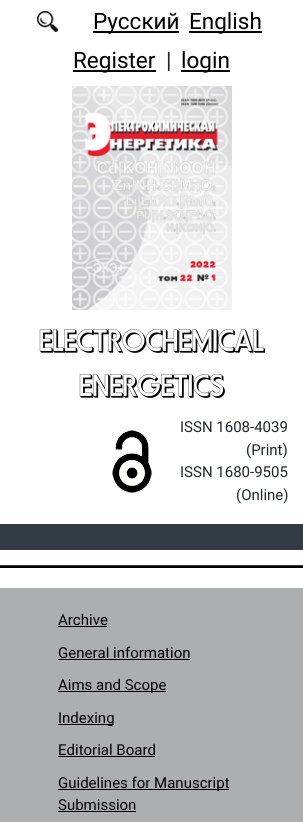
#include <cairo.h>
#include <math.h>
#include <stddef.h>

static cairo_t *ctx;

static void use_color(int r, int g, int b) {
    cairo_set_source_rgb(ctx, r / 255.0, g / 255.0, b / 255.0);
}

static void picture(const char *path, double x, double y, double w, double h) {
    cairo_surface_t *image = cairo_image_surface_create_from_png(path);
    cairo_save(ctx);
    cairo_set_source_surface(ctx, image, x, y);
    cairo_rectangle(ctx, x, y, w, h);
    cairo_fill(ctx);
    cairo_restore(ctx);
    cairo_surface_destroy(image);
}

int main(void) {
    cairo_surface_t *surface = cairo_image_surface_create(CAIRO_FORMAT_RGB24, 303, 822);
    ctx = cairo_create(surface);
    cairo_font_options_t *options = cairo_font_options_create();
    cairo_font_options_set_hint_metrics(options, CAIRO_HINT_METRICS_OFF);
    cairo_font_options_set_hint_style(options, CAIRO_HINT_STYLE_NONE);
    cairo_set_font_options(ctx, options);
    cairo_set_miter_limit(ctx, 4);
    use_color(255, 255, 255);
    cairo_paint(ctx);
    picture("img1.png", 37, 11, 21, 21);
    use_color(0, 0, 0);
    cairo_rectangle(ctx, 93, 31, 86, 2);
    cairo_fill(ctx);
    cairo_select_font_face(ctx, "Roboto", CAIRO_FONT_SLANT_NORMAL, CAIRO_FONT_WEIGHT_NORMAL);
    cairo_set_font_size(ctx, 22.5);
    cairo_move_to(ctx, 93, 29);
    cairo_show_text(ctx, "Русский");
    cairo_rectangle(ctx, 189, 31, 73, 2);
    cairo_fill(ctx);
    cairo_move_to(ctx, 189, 29);
    cairo_show_text(ctx, "English");
    cairo_rectangle(ctx, 73, 70, 83, 2);
    cairo_fill(ctx);
    cairo_move_to(ctx, 73, 68);
    cairo_show_text(ctx, "Register");
    use_color(33, 37, 41);
    cairo_move_to(ctx, 166, 68);
    cairo_show_text(ctx, "|");
    use_color(0, 0, 0);
    cairo_rectangle(ctx, 181, 70, 49, 2);
    cairo_fill(ctx);
    cairo_move_to(ctx, 181, 68);
    cairo_show_text(ctx, "login");
    picture("img2.png", 72, 86, 160, 224);
    cairo_select_font_face(ctx, "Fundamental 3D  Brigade", CAIRO_FONT_SLANT_NORMAL, CAIRO_FONT_WEIGHT_NORMAL);
    cairo_set_font_size(ctx, 30);
    cairo_move_to(ctx, 39, 351);
    cairo_show_text(ctx, "ELECTROCHEMICAL");
    cairo_move_to(ctx, 79, 396);
    cairo_show_text(ctx, "ENERGETICS");
    picture("img3.png", 112, 430, 40, 63);
    cairo_select_font_face(ctx, "Roboto", CAIRO_FONT_SLANT_NORMAL, CAIRO_FONT_WEIGHT_NORMAL);
    cairo_set_font_size(ctx, 15);
    use_color(33, 37, 41);
    cairo_move_to(ctx, 180, 432);
    cairo_show_text(ctx, "ISSN 1608-4039");
    cairo_move_to(ctx, 246, 455);
    cairo_show_text(ctx, "(Print)");
    cairo_move_to(ctx, 180, 477);
    cairo_show_text(ctx, "ISSN 1680-9505");
    cairo_move_to(ctx, 236, 500);
    cairo_show_text(ctx, "(Online)");
    use_color(51, 59, 69);
    cairo_rectangle(ctx, 0, 524, 303, 26);
    cairo_fill(ctx);
    use_color(51, 51, 51);
    cairo_rectangle(ctx, 0, 565, 303, 1);
    cairo_fill(ctx);
    use_color(0, 0, 0);
    cairo_rectangle(ctx, 0, 566, 303, 2);
    cairo_fill(ctx);
    use_color(171, 175, 176);
    cairo_rectangle(ctx, 0, 588, 303, 234);
    cairo_fill(ctx);
    use_color(0, 0, 0);
    cairo_move_to(ctx, 58, 625);
    cairo_show_text(ctx, "Archive");
    cairo_rectangle(ctx, 58, 626, 49, 1);
    cairo_fill(ctx);
    cairo_move_to(ctx, 58, 658);
    cairo_show_text(ctx, "General information");
    cairo_rectangle(ctx, 58, 659, 132, 1);
    cairo_fill(ctx);
    cairo_rectangle(ctx, 58, 691, 108, 1);
    cairo_fill(ctx);
    cairo_move_to(ctx, 58, 690);
    cairo_show_text(ctx, "Aims and Scope");
    cairo_rectangle(ctx, 58, 724, 56, 1);
    cairo_fill(ctx);
    cairo_move_to(ctx, 58, 723);
    cairo_show_text(ctx, "Indexing");
    cairo_move_to(ctx, 58, 755);
    cairo_show_text(ctx, "Editorial Board");
    cairo_rectangle(ctx, 58, 756, 97, 1);
    cairo_fill(ctx);
    cairo_rectangle(ctx, 58, 789, 171, 1);
    cairo_fill(ctx);
    cairo_move_to(ctx, 58, 788);
    cairo_show_text(ctx, "Guidelines for Manuscript");
    cairo_move_to(ctx, 58, 810);
    cairo_show_text(ctx, "Submission");
    cairo_rectangle(ctx, 58, 811, 78, 1);
    cairo_fill(ctx);
    cairo_surface_write_to_png(surface, "result.png");
    cairo_font_options_destroy(options);
    cairo_destroy(ctx);
    cairo_surface_destroy(surface);
    return 0;
}
